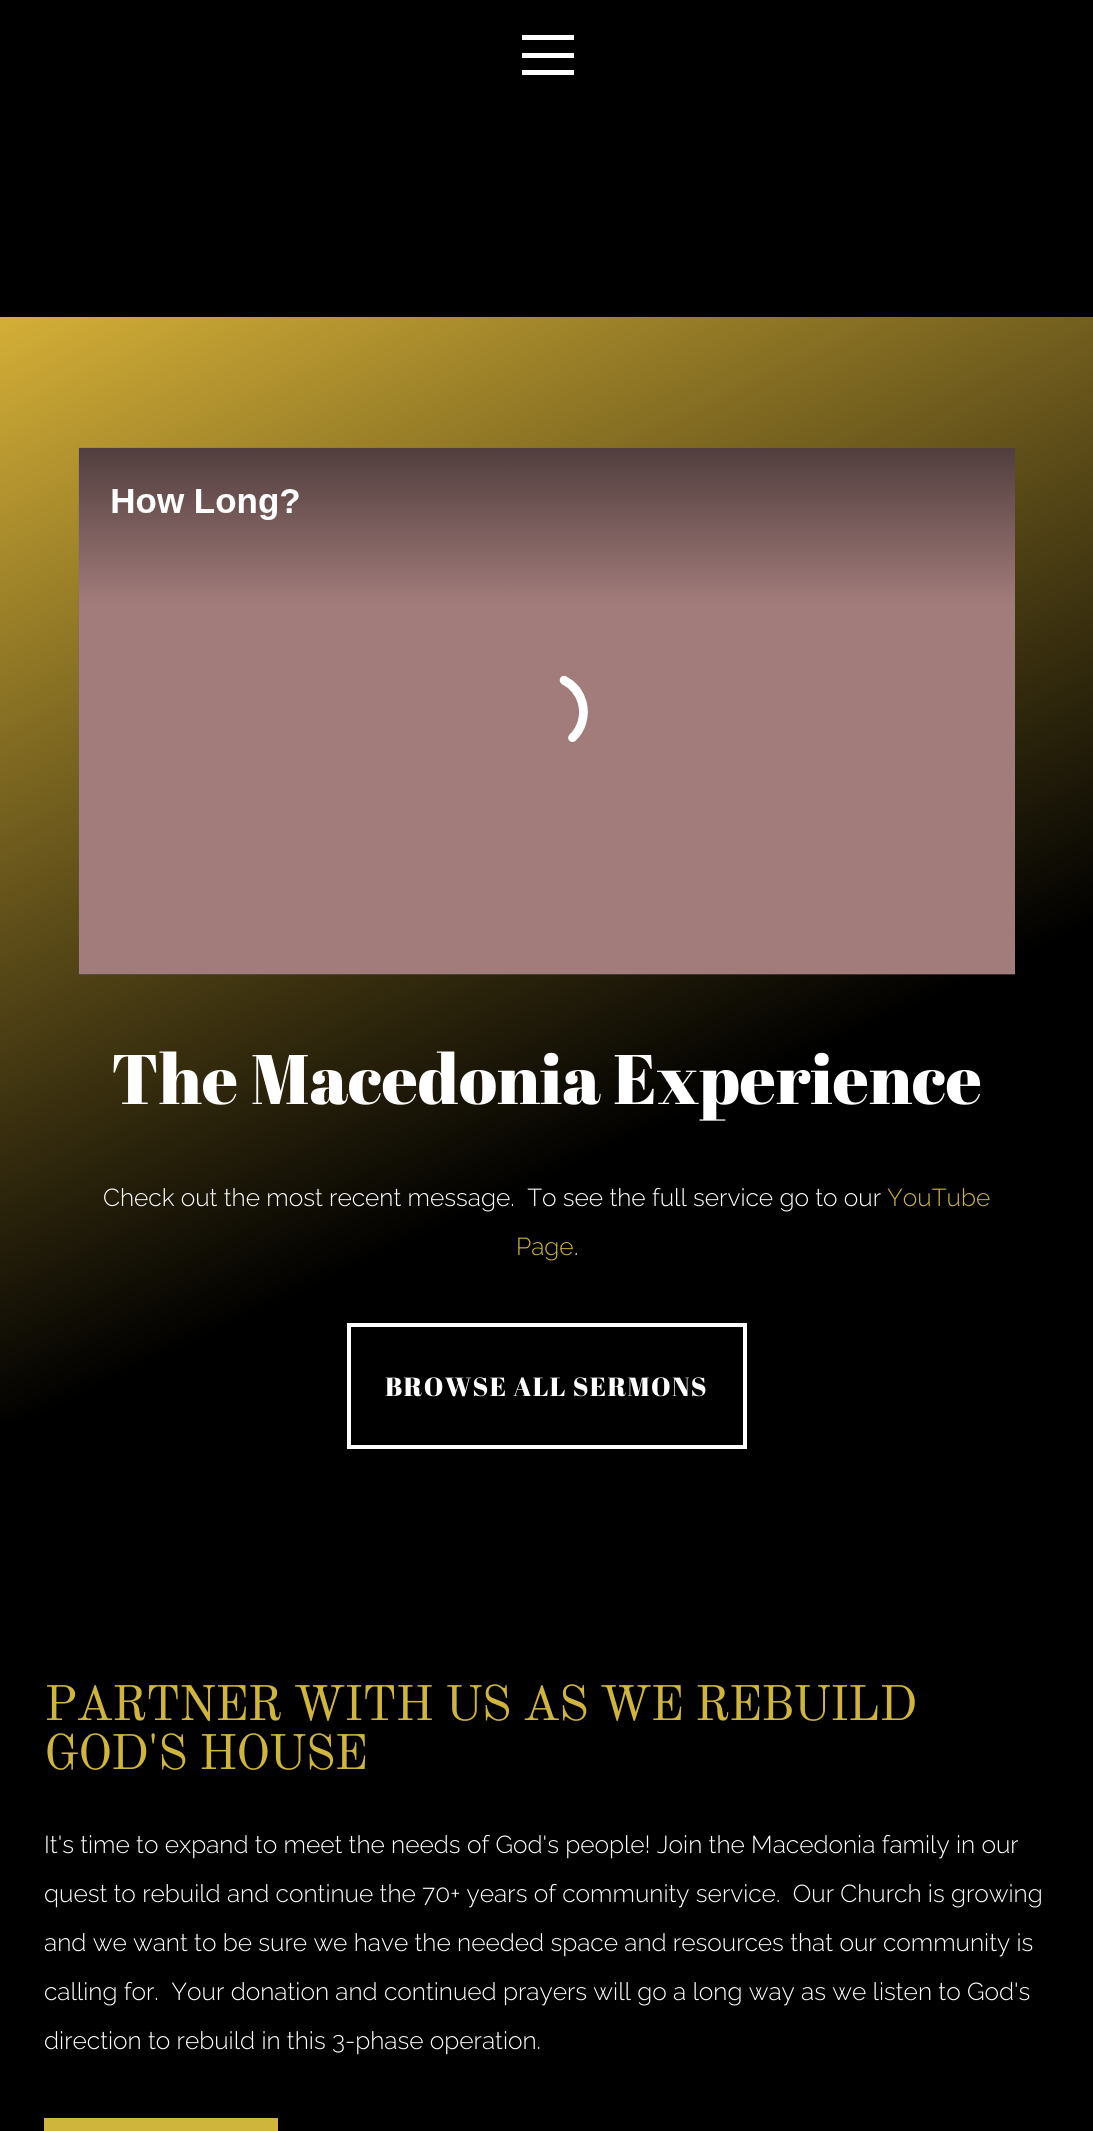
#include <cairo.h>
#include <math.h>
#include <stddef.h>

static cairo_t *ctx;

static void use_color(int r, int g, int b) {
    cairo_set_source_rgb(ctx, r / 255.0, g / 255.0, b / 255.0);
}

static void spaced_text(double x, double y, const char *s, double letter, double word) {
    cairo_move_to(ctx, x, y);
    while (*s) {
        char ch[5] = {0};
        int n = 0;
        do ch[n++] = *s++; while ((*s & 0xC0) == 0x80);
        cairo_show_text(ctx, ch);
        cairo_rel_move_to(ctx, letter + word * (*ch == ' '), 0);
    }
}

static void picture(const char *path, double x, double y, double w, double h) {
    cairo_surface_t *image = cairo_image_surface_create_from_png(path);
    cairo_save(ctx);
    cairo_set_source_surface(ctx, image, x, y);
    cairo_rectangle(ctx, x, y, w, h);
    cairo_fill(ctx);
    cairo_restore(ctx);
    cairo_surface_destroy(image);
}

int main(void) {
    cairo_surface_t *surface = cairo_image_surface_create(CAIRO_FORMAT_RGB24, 1093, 2131);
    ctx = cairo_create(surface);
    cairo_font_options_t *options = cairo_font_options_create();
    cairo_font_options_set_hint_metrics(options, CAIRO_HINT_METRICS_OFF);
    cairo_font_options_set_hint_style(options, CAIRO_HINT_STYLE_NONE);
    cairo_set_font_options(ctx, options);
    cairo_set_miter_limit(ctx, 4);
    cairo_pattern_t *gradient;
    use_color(0, 0, 0);
    cairo_paint(ctx);
    use_color(255, 255, 255);
    cairo_rectangle(ctx, 522, 35, 52, 5);
    cairo_fill(ctx);
    cairo_rectangle(ctx, 522, 53, 52, 5);
    cairo_fill(ctx);
    cairo_rectangle(ctx, 522, 70, 52, 5);
    cairo_fill(ctx);
    gradient = cairo_pattern_create_linear(207, 220, 887, 1677);
    cairo_pattern_add_color_stop_rgba(gradient, 0, 0.831, 0.686, 0.216, 1);
    cairo_pattern_add_color_stop_rgba(gradient, 0.63, 0, 0, 0, 1);
    cairo_set_source(ctx, gradient);
    cairo_pattern_destroy(gradient);
    cairo_rectangle(ctx, 0, 317, 1093, 1104);
    cairo_fill(ctx);
    picture("img1.png", 78, 447, 937, 528);
    cairo_select_font_face(ctx, "Abril Fatface", CAIRO_FONT_SLANT_NORMAL, CAIRO_FONT_WEIGHT_NORMAL);
    cairo_set_font_size(ctx, 70);
    use_color(255, 255, 255);
    cairo_move_to(ctx, 111, 1104);
    cairo_show_text(ctx, "The Macedonia Experience");
    cairo_select_font_face(ctx, "Raleway Light", CAIRO_FONT_SLANT_NORMAL, CAIRO_FONT_WEIGHT_NORMAL);
    cairo_set_font_size(ctx, 24.5);
    cairo_move_to(ctx, 103, 1206);
    cairo_show_text(ctx, "Check out the most recent message.  To see the full service go to our");
    use_color(207, 181, 59);
    cairo_move_to(ctx, 887, 1206);
    cairo_show_text(ctx, "YouTube");
    cairo_move_to(ctx, 516, 1255);
    cairo_show_text(ctx, "Page");
    use_color(255, 255, 255);
    cairo_move_to(ctx, 574, 1255);
    cairo_show_text(ctx, ".");
    cairo_rectangle(ctx, 349, 1325, 396, 122);
    cairo_set_line_width(ctx, 4);
    cairo_stroke(ctx);
    cairo_select_font_face(ctx, "Abril Fatface", CAIRO_FONT_SLANT_NORMAL, CAIRO_FONT_WEIGHT_NORMAL);
    cairo_set_font_size(ctx, 26.25);
    spaced_text(385, 1396, "BROWSE ALL SERMONS", 1.3, 0);
    cairo_select_font_face(ctx, "Old Standard TT", CAIRO_FONT_SLANT_NORMAL, CAIRO_FONT_WEIGHT_NORMAL);
    cairo_set_font_size(ctx, 49);
    use_color(207, 181, 59);
    spaced_text(44, 1720, "PARTNER WITH US AS WE REBUILD", -1.5, 0);
    spaced_text(44, 1769, "GOD'S HOUSE", -1.5, 0);
    cairo_select_font_face(ctx, "Raleway Light", CAIRO_FONT_SLANT_NORMAL, CAIRO_FONT_WEIGHT_NORMAL);
    cairo_set_font_size(ctx, 24.5);
    use_color(255, 255, 255);
    cairo_move_to(ctx, 44, 1853);
    cairo_show_text(ctx, "It's time to expand to meet the needs of God's people! Join the Macedonia family in our");
    cairo_move_to(ctx, 44, 1902);
    cairo_show_text(ctx, "quest to rebuild and continue the 70+ years of community service.  Our Church is growing");
    cairo_move_to(ctx, 44, 1951);
    cairo_show_text(ctx, "and we want to be sure we have the needed space and resources that our community is");
    cairo_move_to(ctx, 44, 2000);
    cairo_show_text(ctx, "calling for.  Your donation and continued prayers will go a long way as we listen to God's");
    cairo_move_to(ctx, 44, 2049);
    cairo_show_text(ctx, "direction to rebuild in this 3-phase operation.");
    use_color(207, 181, 59);
    cairo_rectangle(ctx, 44, 2118, 234, 13);
    cairo_fill(ctx);
    cairo_surface_write_to_png(surface, "result.png");
    cairo_font_options_destroy(options);
    cairo_destroy(ctx);
    cairo_surface_destroy(surface);
    return 0;
}
